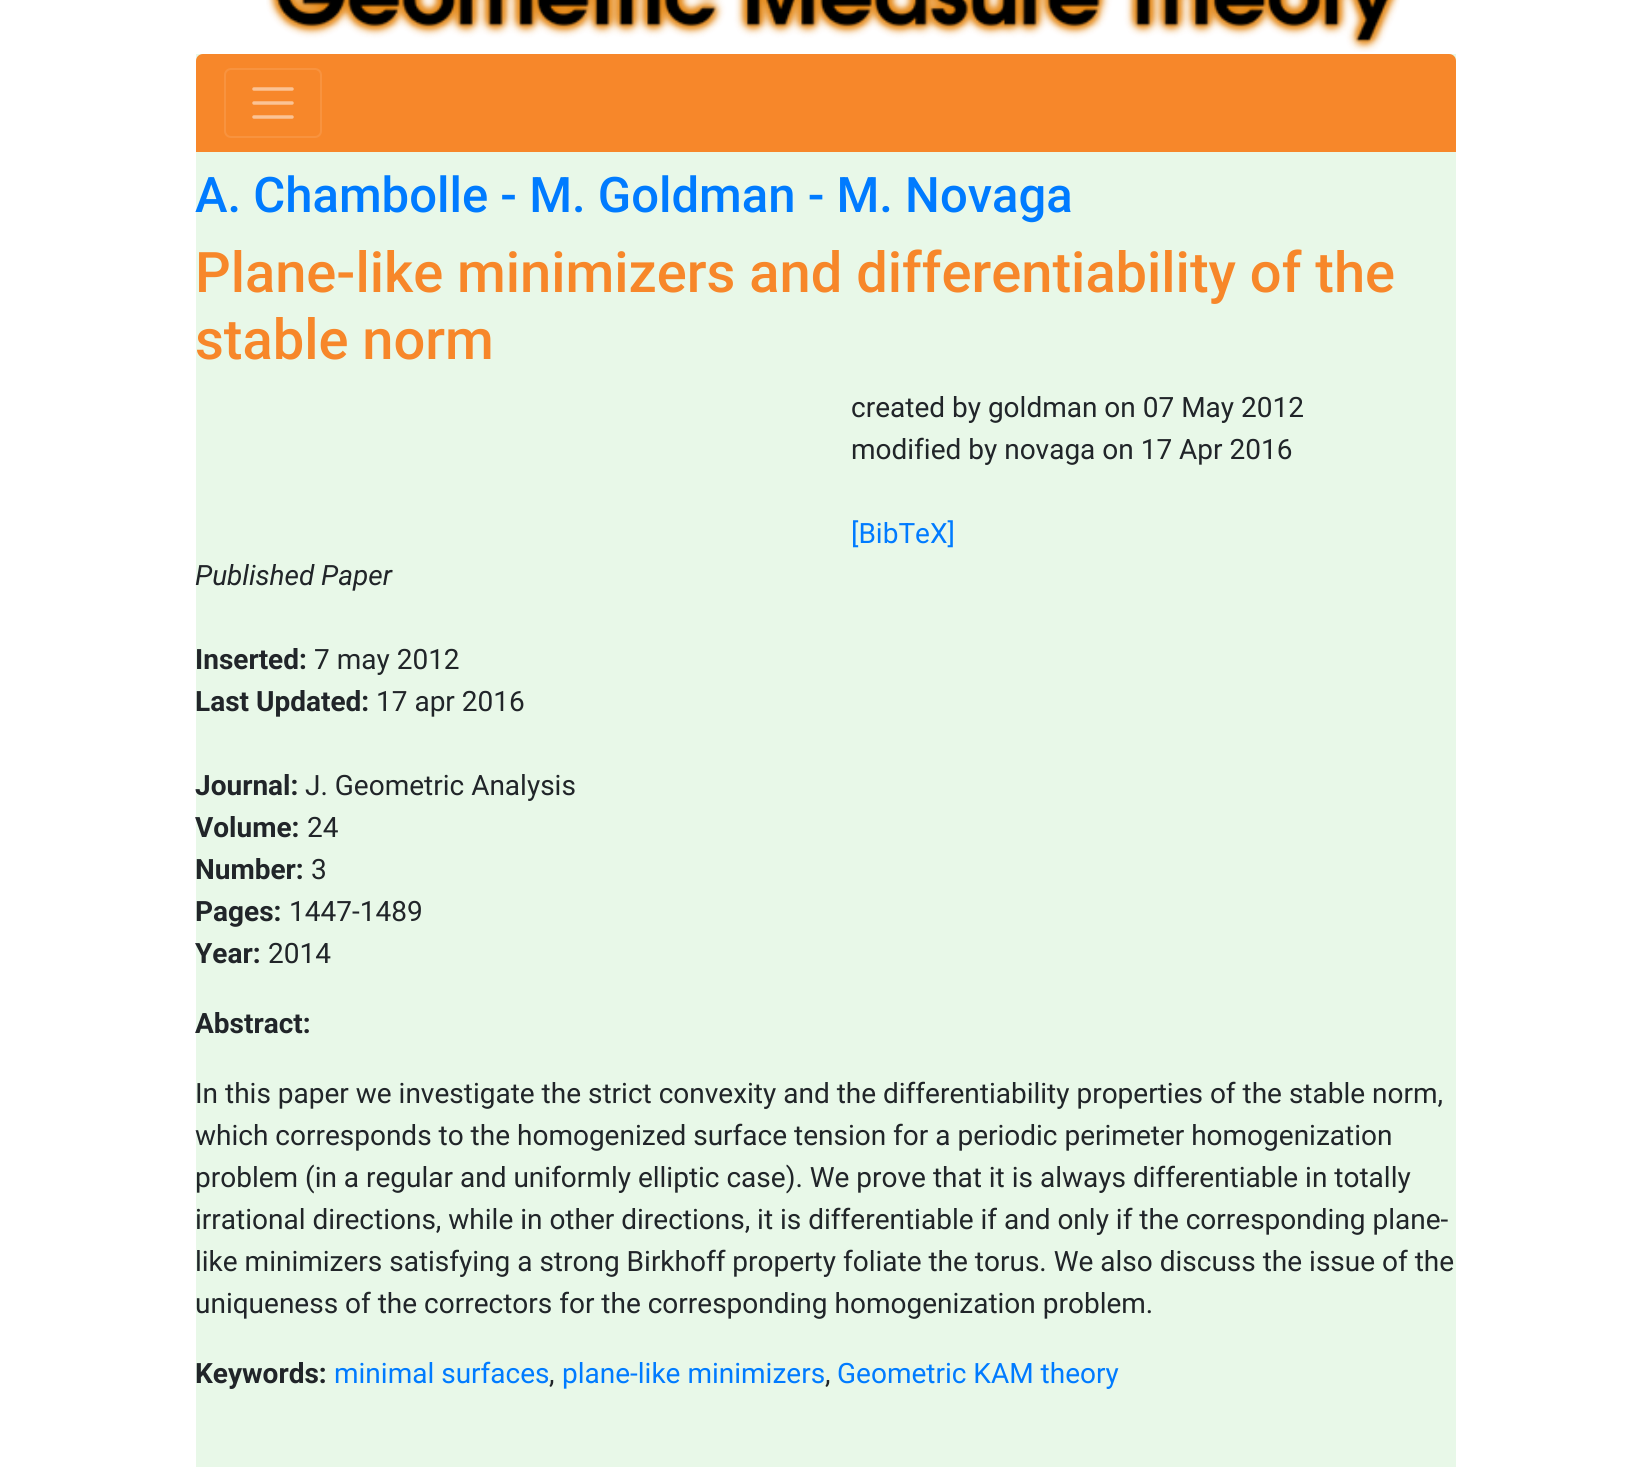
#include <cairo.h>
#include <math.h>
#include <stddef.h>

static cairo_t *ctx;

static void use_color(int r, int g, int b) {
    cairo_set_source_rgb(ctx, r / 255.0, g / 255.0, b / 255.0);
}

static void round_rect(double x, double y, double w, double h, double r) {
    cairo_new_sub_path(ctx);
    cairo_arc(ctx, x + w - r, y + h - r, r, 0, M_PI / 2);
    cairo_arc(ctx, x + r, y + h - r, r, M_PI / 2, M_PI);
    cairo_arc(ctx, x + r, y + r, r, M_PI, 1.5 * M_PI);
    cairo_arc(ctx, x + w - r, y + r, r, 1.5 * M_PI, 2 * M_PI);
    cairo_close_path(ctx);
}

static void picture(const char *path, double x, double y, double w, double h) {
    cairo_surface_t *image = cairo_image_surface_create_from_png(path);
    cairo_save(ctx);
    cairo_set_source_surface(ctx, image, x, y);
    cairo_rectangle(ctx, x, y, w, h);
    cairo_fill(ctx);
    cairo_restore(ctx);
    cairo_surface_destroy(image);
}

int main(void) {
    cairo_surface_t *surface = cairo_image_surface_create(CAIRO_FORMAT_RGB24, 1649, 1467);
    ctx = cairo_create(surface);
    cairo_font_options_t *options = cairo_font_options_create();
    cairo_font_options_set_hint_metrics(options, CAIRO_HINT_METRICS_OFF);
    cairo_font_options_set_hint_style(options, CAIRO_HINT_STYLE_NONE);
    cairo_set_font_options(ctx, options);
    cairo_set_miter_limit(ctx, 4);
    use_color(255, 255, 255);
    cairo_paint(ctx);
    use_color(232, 248, 232);
    cairo_rectangle(ctx, 196, 54, 1260, 1413);
    cairo_fill(ctx);
    picture("img1.png", 266, 0, 1134, 52);
    use_color(247, 135, 42);
    cairo_new_path(ctx);
    cairo_move_to(ctx, 203, 54);
    cairo_line_to(ctx, 1449, 54);
    cairo_curve_to(ctx, 1453, 54, 1456, 57, 1456, 61);
    cairo_line_to(ctx, 1456, 152);
    cairo_line_to(ctx, 196, 152);
    cairo_line_to(ctx, 196, 61);
    cairo_curve_to(ctx, 196, 57, 199, 54, 203, 54);
    cairo_close_path(ctx);
    cairo_fill(ctx);
    round_rect(225, 69, 96, 68, 6);
    use_color(248, 147, 63);
    cairo_stroke(ctx);
    cairo_new_path(ctx);
    cairo_move_to(ctx, 254, 89);
    cairo_line_to(ctx, 292, 89);
    cairo_move_to(ctx, 254, 103);
    cairo_line_to(ctx, 292, 103);
    cairo_move_to(ctx, 254, 117);
    cairo_line_to(ctx, 292, 117);
    use_color(251, 195, 149);
    cairo_set_line_width(ctx, 3.5);
    cairo_set_line_cap(ctx, CAIRO_LINE_CAP_ROUND);
    cairo_stroke(ctx);
    cairo_select_font_face(ctx, "Roboto Medium", CAIRO_FONT_SLANT_NORMAL, CAIRO_FONT_WEIGHT_NORMAL);
    cairo_set_font_size(ctx, 49);
    use_color(0, 123, 255);
    cairo_move_to(ctx, 195, 212);
    cairo_show_text(ctx, "A. Chambolle - M. Goldman - M. Novaga");
    cairo_set_font_size(ctx, 56);
    use_color(247, 135, 42);
    cairo_move_to(ctx, 195, 292);
    cairo_show_text(ctx, "Plane-like minimizers and differentiability of the");
    cairo_move_to(ctx, 195, 359);
    cairo_show_text(ctx, "stable norm");
    cairo_select_font_face(ctx, "Roboto", CAIRO_FONT_SLANT_NORMAL, CAIRO_FONT_WEIGHT_NORMAL);
    cairo_set_font_size(ctx, 28);
    use_color(33, 37, 41);
    cairo_move_to(ctx, 851, 417);
    cairo_show_text(ctx, "created by goldman on 07 May 2012");
    cairo_move_to(ctx, 851, 459);
    cairo_show_text(ctx, "modified by novaga on 17 Apr 2016");
    use_color(0, 123, 255);
    cairo_move_to(ctx, 851, 543);
    cairo_show_text(ctx, "[BibTeX]");
    cairo_select_font_face(ctx, "Roboto", CAIRO_FONT_SLANT_ITALIC, CAIRO_FONT_WEIGHT_NORMAL);
    use_color(33, 37, 41);
    cairo_move_to(ctx, 195, 585);
    cairo_show_text(ctx, "Published Paper");
    cairo_select_font_face(ctx, "Roboto", CAIRO_FONT_SLANT_NORMAL, CAIRO_FONT_WEIGHT_BOLD);
    cairo_move_to(ctx, 195, 669);
    cairo_show_text(ctx, "Inserted:");
    cairo_select_font_face(ctx, "Roboto", CAIRO_FONT_SLANT_NORMAL, CAIRO_FONT_WEIGHT_NORMAL);
    cairo_move_to(ctx, 314, 669);
    cairo_show_text(ctx, "7 may 2012");
    cairo_select_font_face(ctx, "Roboto", CAIRO_FONT_SLANT_NORMAL, CAIRO_FONT_WEIGHT_BOLD);
    cairo_move_to(ctx, 195, 711);
    cairo_show_text(ctx, "Last Updated:");
    cairo_select_font_face(ctx, "Roboto", CAIRO_FONT_SLANT_NORMAL, CAIRO_FONT_WEIGHT_NORMAL);
    cairo_move_to(ctx, 376, 711);
    cairo_show_text(ctx, "17 apr 2016");
    cairo_select_font_face(ctx, "Roboto", CAIRO_FONT_SLANT_NORMAL, CAIRO_FONT_WEIGHT_BOLD);
    cairo_move_to(ctx, 195, 795);
    cairo_show_text(ctx, "Journal:");
    cairo_select_font_face(ctx, "Roboto", CAIRO_FONT_SLANT_NORMAL, CAIRO_FONT_WEIGHT_NORMAL);
    cairo_move_to(ctx, 305, 795);
    cairo_show_text(ctx, "J. Geometric Analysis");
    cairo_select_font_face(ctx, "Roboto", CAIRO_FONT_SLANT_NORMAL, CAIRO_FONT_WEIGHT_BOLD);
    cairo_move_to(ctx, 195, 837);
    cairo_show_text(ctx, "Volume:");
    cairo_select_font_face(ctx, "Roboto", CAIRO_FONT_SLANT_NORMAL, CAIRO_FONT_WEIGHT_NORMAL);
    cairo_move_to(ctx, 307, 837);
    cairo_show_text(ctx, "24");
    cairo_select_font_face(ctx, "Roboto", CAIRO_FONT_SLANT_NORMAL, CAIRO_FONT_WEIGHT_BOLD);
    cairo_move_to(ctx, 195, 879);
    cairo_show_text(ctx, "Number:");
    cairo_select_font_face(ctx, "Roboto", CAIRO_FONT_SLANT_NORMAL, CAIRO_FONT_WEIGHT_NORMAL);
    cairo_move_to(ctx, 311, 879);
    cairo_show_text(ctx, "3");
    cairo_select_font_face(ctx, "Roboto", CAIRO_FONT_SLANT_NORMAL, CAIRO_FONT_WEIGHT_BOLD);
    cairo_move_to(ctx, 195, 921);
    cairo_show_text(ctx, "Pages:");
    cairo_select_font_face(ctx, "Roboto", CAIRO_FONT_SLANT_NORMAL, CAIRO_FONT_WEIGHT_NORMAL);
    cairo_move_to(ctx, 289, 921);
    cairo_show_text(ctx, "1447-1489");
    cairo_select_font_face(ctx, "Roboto", CAIRO_FONT_SLANT_NORMAL, CAIRO_FONT_WEIGHT_BOLD);
    cairo_move_to(ctx, 195, 963);
    cairo_show_text(ctx, "Year:");
    cairo_select_font_face(ctx, "Roboto", CAIRO_FONT_SLANT_NORMAL, CAIRO_FONT_WEIGHT_NORMAL);
    cairo_move_to(ctx, 268, 963);
    cairo_show_text(ctx, "2014");
    cairo_select_font_face(ctx, "Roboto", CAIRO_FONT_SLANT_NORMAL, CAIRO_FONT_WEIGHT_BOLD);
    cairo_move_to(ctx, 195, 1033);
    cairo_show_text(ctx, "Abstract:");
    cairo_select_font_face(ctx, "Roboto", CAIRO_FONT_SLANT_NORMAL, CAIRO_FONT_WEIGHT_NORMAL);
    cairo_move_to(ctx, 195, 1103);
    cairo_show_text(ctx, "In this paper we investigate the strict convexity and the differentiability properties of the stable norm,");
    cairo_move_to(ctx, 195, 1145);
    cairo_show_text(ctx, "which corresponds to the homogenized surface tension for a periodic perimeter homogenization");
    cairo_move_to(ctx, 195, 1187);
    cairo_show_text(ctx, "problem (in a regular and uniformly elliptic case). We prove that it is always differentiable in totally");
    cairo_move_to(ctx, 195, 1229);
    cairo_show_text(ctx, "irrational directions, while in other directions, it is differentiable if and only if the corresponding plane-");
    cairo_move_to(ctx, 195, 1271);
    cairo_show_text(ctx, "like minimizers satisfying a strong Birkhoff property foliate the torus. We also discuss the issue of the");
    cairo_move_to(ctx, 195, 1313);
    cairo_show_text(ctx, "uniqueness of the correctors for the corresponding homogenization problem.");
    cairo_select_font_face(ctx, "Roboto", CAIRO_FONT_SLANT_NORMAL, CAIRO_FONT_WEIGHT_BOLD);
    cairo_move_to(ctx, 195, 1383);
    cairo_show_text(ctx, "Keywords:");
    cairo_select_font_face(ctx, "Roboto", CAIRO_FONT_SLANT_NORMAL, CAIRO_FONT_WEIGHT_NORMAL);
    use_color(0, 123, 255);
    cairo_move_to(ctx, 334, 1383);
    cairo_show_text(ctx, "minimal surfaces");
    use_color(33, 37, 41);
    cairo_move_to(ctx, 549, 1383);
    cairo_show_text(ctx, ",");
    use_color(0, 123, 255);
    cairo_move_to(ctx, 562, 1383);
    cairo_show_text(ctx, "plane-like minimizers");
    use_color(33, 37, 41);
    cairo_move_to(ctx, 825, 1383);
    cairo_show_text(ctx, ",");
    use_color(0, 123, 255);
    cairo_move_to(ctx, 837, 1383);
    cairo_show_text(ctx, "Geometric KAM theory");
    cairo_surface_write_to_png(surface, "result.png");
    cairo_font_options_destroy(options);
    cairo_destroy(ctx);
    cairo_surface_destroy(surface);
    return 0;
}
